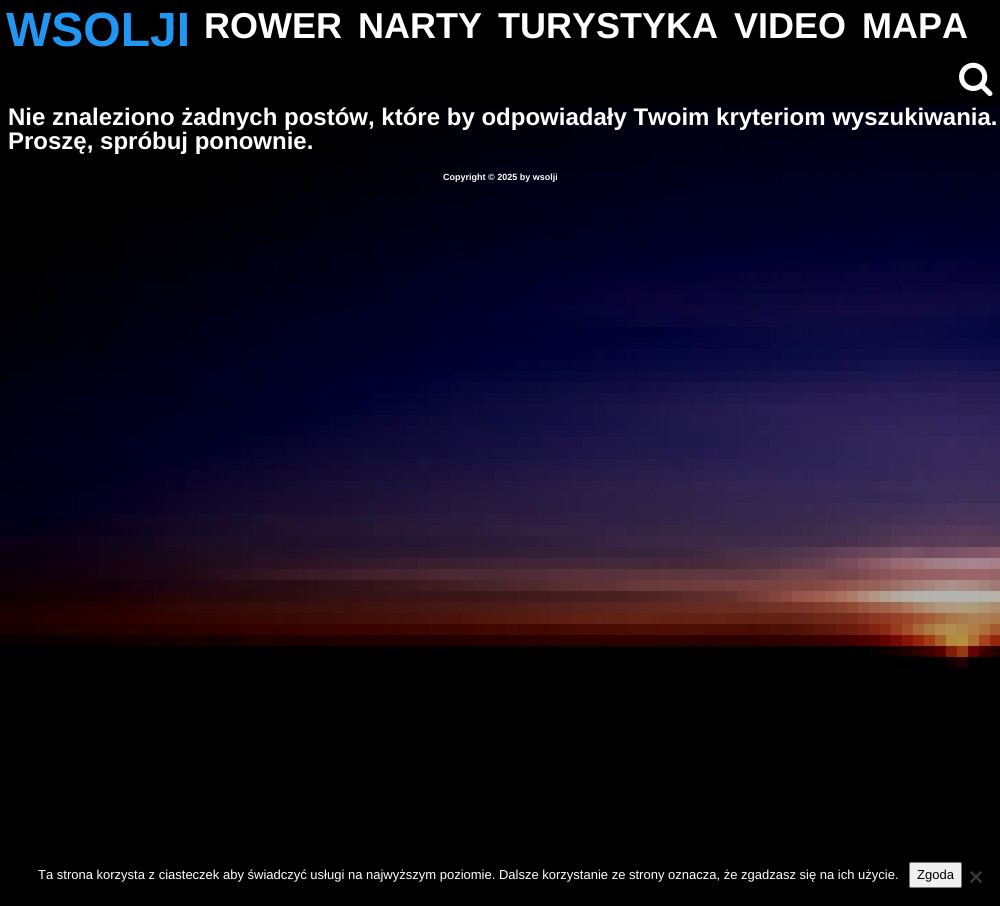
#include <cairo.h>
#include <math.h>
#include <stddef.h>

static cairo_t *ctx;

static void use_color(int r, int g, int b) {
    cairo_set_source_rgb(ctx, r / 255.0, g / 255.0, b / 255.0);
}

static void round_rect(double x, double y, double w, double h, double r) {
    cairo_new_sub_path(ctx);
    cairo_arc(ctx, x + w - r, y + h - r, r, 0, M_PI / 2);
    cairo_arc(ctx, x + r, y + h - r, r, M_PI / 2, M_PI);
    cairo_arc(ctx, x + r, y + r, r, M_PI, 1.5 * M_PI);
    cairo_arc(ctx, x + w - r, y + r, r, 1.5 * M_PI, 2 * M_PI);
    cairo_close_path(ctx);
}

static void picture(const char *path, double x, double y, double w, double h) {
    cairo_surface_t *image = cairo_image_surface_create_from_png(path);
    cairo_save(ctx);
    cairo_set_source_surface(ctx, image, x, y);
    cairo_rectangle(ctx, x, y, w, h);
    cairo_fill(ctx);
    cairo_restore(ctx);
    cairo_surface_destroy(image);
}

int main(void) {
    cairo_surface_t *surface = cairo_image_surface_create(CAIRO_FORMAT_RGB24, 1000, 906);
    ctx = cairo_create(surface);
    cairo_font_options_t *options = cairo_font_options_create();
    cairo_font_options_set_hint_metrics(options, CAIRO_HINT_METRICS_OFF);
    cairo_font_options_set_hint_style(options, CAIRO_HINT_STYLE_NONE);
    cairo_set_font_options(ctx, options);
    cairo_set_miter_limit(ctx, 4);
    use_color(0, 0, 0);
    cairo_paint(ctx);
    picture("img1.png", 0, 105, 1000, 567);
    cairo_select_font_face(ctx, "Liberation Sans", CAIRO_FONT_SLANT_NORMAL, CAIRO_FONT_WEIGHT_BOLD);
    cairo_set_font_size(ctx, 48);
    use_color(33, 150, 243);
    cairo_move_to(ctx, 6, 46);
    cairo_show_text(ctx, "WSOLJI");
    cairo_set_font_size(ctx, 36);
    use_color(255, 255, 255);
    cairo_move_to(ctx, 204, 38);
    cairo_show_text(ctx, "ROWER");
    cairo_move_to(ctx, 358, 38);
    cairo_show_text(ctx, "NARTY");
    cairo_move_to(ctx, 498, 38);
    cairo_show_text(ctx, "TURYSTYKA");
    cairo_move_to(ctx, 734, 38);
    cairo_show_text(ctx, "VIDEO");
    cairo_move_to(ctx, 862, 38);
    cairo_show_text(ctx, "MAPA");
    picture("img2.png", 959, 62, 34, 35);
    cairo_set_font_size(ctx, 24);
    cairo_move_to(ctx, 8, 125);
    cairo_show_text(ctx, "Nie znaleziono żadnych postów, które by odpowiadały Twoim kryteriom wyszukiwania.");
    cairo_move_to(ctx, 8, 149);
    cairo_show_text(ctx, "Proszę, spróbuj ponownie.");
    cairo_set_font_size(ctx, 9);
    cairo_move_to(ctx, 443, 180);
    cairo_show_text(ctx, "Copyright © 2025 by wsolji");
    cairo_select_font_face(ctx, "Liberation Sans", CAIRO_FONT_SLANT_NORMAL, CAIRO_FONT_WEIGHT_NORMAL);
    cairo_set_font_size(ctx, 13);
    cairo_move_to(ctx, 38, 879);
    cairo_show_text(ctx, "Ta strona korzysta z ciasteczek aby świadczyć usługi na najwyższym poziomie. Dalsze korzystanie ze strony oznacza, że zgadzasz się na ich użycie.");
    use_color(239, 239, 239);
    round_rect(909.5, 862.5, 52, 25, 1.5);
    cairo_fill_preserve(ctx);
    use_color(118, 118, 118);
    cairo_set_line_width(ctx, 1);
    cairo_stroke(ctx);
    use_color(0, 0, 0);
    cairo_move_to(ctx, 917, 879);
    cairo_show_text(ctx, "Zgoda");
    use_color(64, 64, 64);
    cairo_new_path(ctx);
    cairo_move_to(ctx, 980.5, 871);
    cairo_line_to(ctx, 982, 872.5);
    cairo_line_to(ctx, 971.5, 883);
    cairo_line_to(ctx, 970, 881.5);
    cairo_close_path(ctx);
    cairo_fill(ctx);
    cairo_new_path(ctx);
    cairo_move_to(ctx, 970, 872.5);
    cairo_line_to(ctx, 971.5, 871);
    cairo_line_to(ctx, 982, 881.5);
    cairo_line_to(ctx, 980.5, 883);
    cairo_close_path(ctx);
    cairo_fill(ctx);
    cairo_surface_write_to_png(surface, "result.png");
    cairo_font_options_destroy(options);
    cairo_destroy(ctx);
    cairo_surface_destroy(surface);
    return 0;
}
